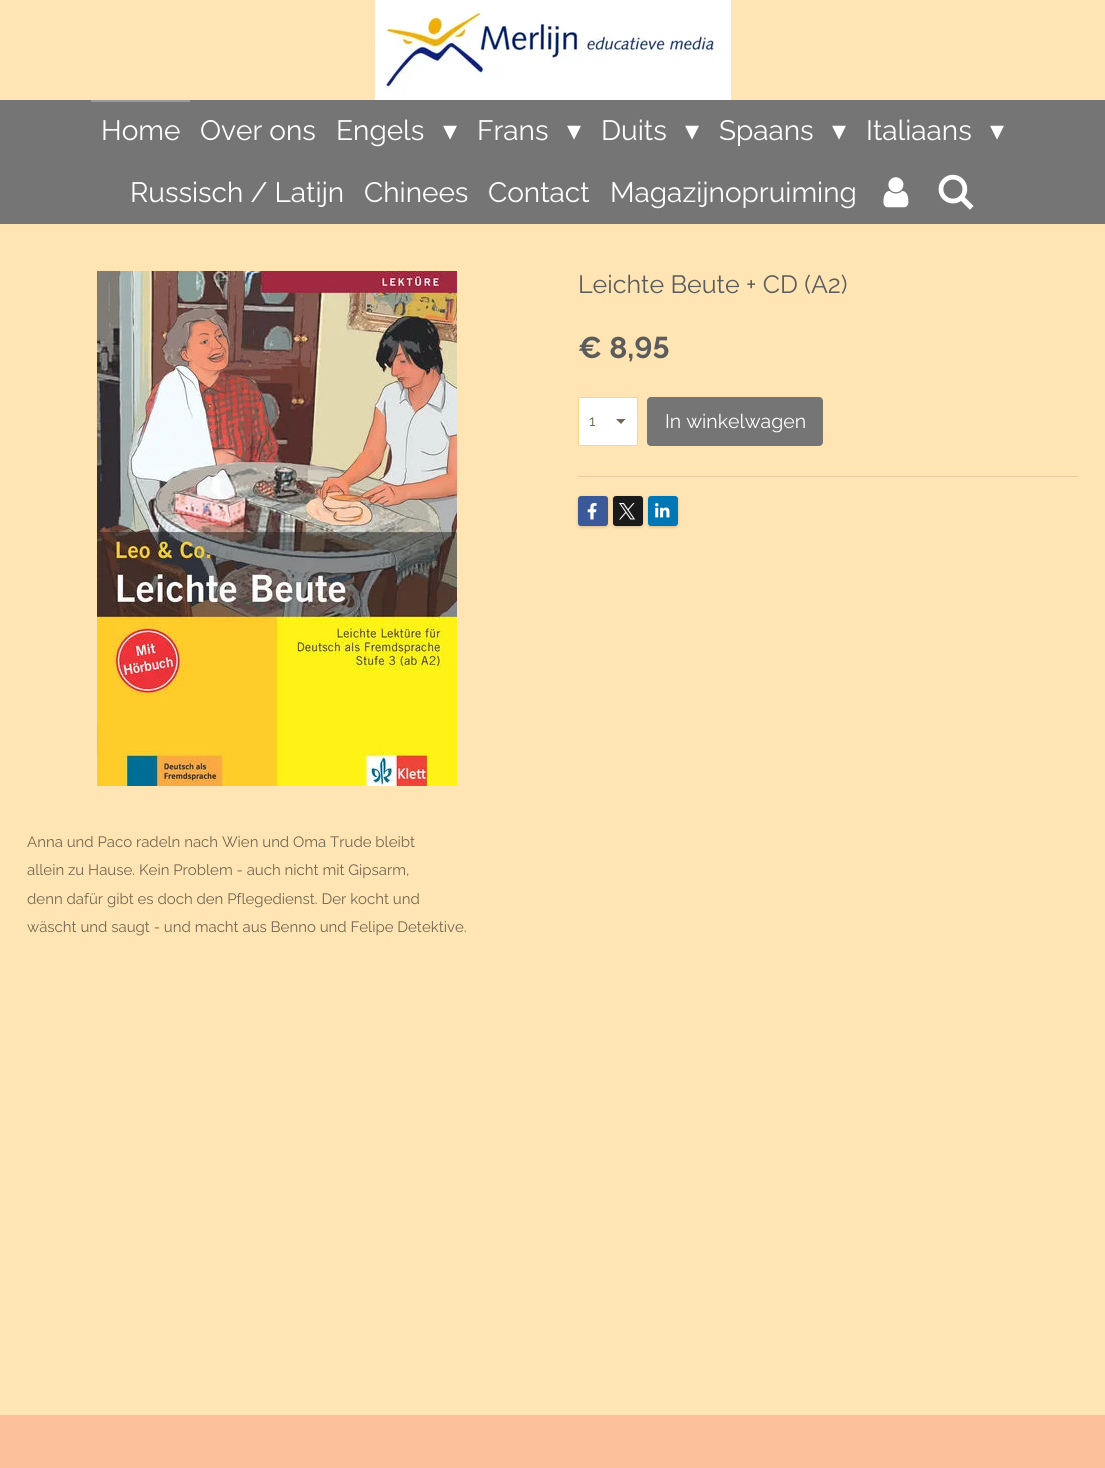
#include <cairo.h>
#include <math.h>
#include <stddef.h>

static cairo_t *ctx;

static void use_color(int r, int g, int b) {
    cairo_set_source_rgb(ctx, r / 255.0, g / 255.0, b / 255.0);
}

static void round_rect(double x, double y, double w, double h, double r) {
    cairo_new_sub_path(ctx);
    cairo_arc(ctx, x + w - r, y + h - r, r, 0, M_PI / 2);
    cairo_arc(ctx, x + r, y + h - r, r, M_PI / 2, M_PI);
    cairo_arc(ctx, x + r, y + r, r, M_PI, 1.5 * M_PI);
    cairo_arc(ctx, x + w - r, y + r, r, 1.5 * M_PI, 2 * M_PI);
    cairo_close_path(ctx);
}

static void shadow(double x, double y, double w, double h, double r, double blur, double alpha) {
    cairo_push_group_with_content(ctx, CAIRO_CONTENT_ALPHA);
    cairo_set_operator(ctx, CAIRO_OPERATOR_SOURCE);
    for (int i = 15; i >= -15 && fmin(w, h) + blur * i / 3 > 0; i -= 2) {
        double e = blur * i / 6;
        cairo_set_source_rgba(ctx, 0, 0, 0, alpha * erfc((i - 1) / 8.5) / 2);
        round_rect(x - e, y - e, w + 2 * e, h + 2 * e, fmax(0, fmin(r + e + blur * .6, fmin(w, h) / 2 + e)));
        cairo_fill(ctx);
    }
    cairo_pattern_t *soft = cairo_pop_group(ctx);
    cairo_mask(ctx, soft);
    cairo_pattern_destroy(soft);
}

static void picture(const char *path, double x, double y, double w, double h) {
    cairo_surface_t *image = cairo_image_surface_create_from_png(path);
    cairo_save(ctx);
    cairo_set_source_surface(ctx, image, x, y);
    cairo_rectangle(ctx, x, y, w, h);
    cairo_fill(ctx);
    cairo_restore(ctx);
    cairo_surface_destroy(image);
}

int main(void) {
    cairo_surface_t *surface = cairo_image_surface_create(CAIRO_FORMAT_RGB24, 1105, 1468);
    ctx = cairo_create(surface);
    cairo_font_options_t *options = cairo_font_options_create();
    cairo_font_options_set_hint_metrics(options, CAIRO_HINT_METRICS_OFF);
    cairo_font_options_set_hint_style(options, CAIRO_HINT_STYLE_NONE);
    cairo_set_font_options(ctx, options);
    cairo_set_miter_limit(ctx, 4);
    use_color(255, 229, 179);
    cairo_paint(ctx);
    picture("img1.png", 375, 0, 356, 100);
    use_color(117, 117, 117);
    cairo_rectangle(ctx, 0, 100, 1105, 124);
    cairo_fill(ctx);
    use_color(153, 153, 153);
    cairo_rectangle(ctx, 91, 100, 99, 2);
    cairo_fill(ctx);
    cairo_select_font_face(ctx, "Raleway", CAIRO_FONT_SLANT_NORMAL, CAIRO_FONT_WEIGHT_NORMAL);
    cairo_set_font_size(ctx, 28);
    use_color(255, 255, 255);
    cairo_move_to(ctx, 101, 140);
    cairo_show_text(ctx, "Home");
    cairo_move_to(ctx, 200, 140);
    cairo_show_text(ctx, "Over ons");
    cairo_move_to(ctx, 336, 140);
    cairo_show_text(ctx, "Engels");
    cairo_select_font_face(ctx, "DejaVu Sans", CAIRO_FONT_SLANT_NORMAL, CAIRO_FONT_WEIGHT_NORMAL);
    cairo_move_to(ctx, 443, 140);
    cairo_show_text(ctx, "▾");
    cairo_select_font_face(ctx, "Raleway", CAIRO_FONT_SLANT_NORMAL, CAIRO_FONT_WEIGHT_NORMAL);
    cairo_move_to(ctx, 477, 140);
    cairo_show_text(ctx, "Frans");
    cairo_select_font_face(ctx, "DejaVu Sans", CAIRO_FONT_SLANT_NORMAL, CAIRO_FONT_WEIGHT_NORMAL);
    cairo_move_to(ctx, 567, 140);
    cairo_show_text(ctx, "▾");
    cairo_select_font_face(ctx, "Raleway", CAIRO_FONT_SLANT_NORMAL, CAIRO_FONT_WEIGHT_NORMAL);
    cairo_move_to(ctx, 601, 140);
    cairo_show_text(ctx, "Duits");
    cairo_select_font_face(ctx, "DejaVu Sans", CAIRO_FONT_SLANT_NORMAL, CAIRO_FONT_WEIGHT_NORMAL);
    cairo_move_to(ctx, 685, 140);
    cairo_show_text(ctx, "▾");
    cairo_select_font_face(ctx, "Raleway", CAIRO_FONT_SLANT_NORMAL, CAIRO_FONT_WEIGHT_NORMAL);
    cairo_move_to(ctx, 719, 140);
    cairo_show_text(ctx, "Spaans");
    cairo_select_font_face(ctx, "DejaVu Sans", CAIRO_FONT_SLANT_NORMAL, CAIRO_FONT_WEIGHT_NORMAL);
    cairo_move_to(ctx, 832, 140);
    cairo_show_text(ctx, "▾");
    cairo_select_font_face(ctx, "Raleway", CAIRO_FONT_SLANT_NORMAL, CAIRO_FONT_WEIGHT_NORMAL);
    cairo_move_to(ctx, 866, 140);
    cairo_show_text(ctx, "Italiaans");
    cairo_select_font_face(ctx, "DejaVu Sans", CAIRO_FONT_SLANT_NORMAL, CAIRO_FONT_WEIGHT_NORMAL);
    cairo_move_to(ctx, 990, 140);
    cairo_show_text(ctx, "▾");
    cairo_select_font_face(ctx, "Raleway", CAIRO_FONT_SLANT_NORMAL, CAIRO_FONT_WEIGHT_NORMAL);
    cairo_move_to(ctx, 130, 202);
    cairo_show_text(ctx, "Russisch / Latijn");
    cairo_move_to(ctx, 364, 202);
    cairo_show_text(ctx, "Chinees");
    cairo_move_to(ctx, 488, 202);
    cairo_show_text(ctx, "Contact");
    cairo_move_to(ctx, 610, 202);
    cairo_show_text(ctx, "Magazijnopruiming");
    picture("img2.png", 883, 177, 26, 31);
    picture("img3.png", 938, 174, 36, 36);
    picture("img4.png", 97, 271, 360, 515);
    cairo_set_font_size(ctx, 25);
    use_color(92, 92, 92);
    cairo_move_to(ctx, 578, 293);
    cairo_show_text(ctx, "Leichte Beute + CD (A2)");
    cairo_select_font_face(ctx, "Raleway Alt", CAIRO_FONT_SLANT_NORMAL, CAIRO_FONT_WEIGHT_BOLD);
    cairo_set_font_size(ctx, 30);
    cairo_move_to(ctx, 578, 358);
    cairo_show_text(ctx, "€ 8,95");
    use_color(255, 255, 255);
    round_rect(578, 397, 60, 49, 2);
    cairo_fill(ctx);
    use_color(115, 103, 81);
    cairo_new_path(ctx);
    cairo_move_to(ctx, 621, 424);
    cairo_line_to(ctx, 616, 419);
    cairo_line_to(ctx, 625.5, 419);
    cairo_close_path(ctx);
    cairo_fill(ctx);
    round_rect(578.5, 397.5, 59, 48, 1.5);
    cairo_set_source_rgba(ctx, 1, 0.659, 0, 0.5);
    cairo_set_line_width(ctx, 1);
    cairo_stroke(ctx);
    cairo_select_font_face(ctx, "Raleway", CAIRO_FONT_SLANT_NORMAL, CAIRO_FONT_WEIGHT_NORMAL);
    cairo_set_font_size(ctx, 15);
    use_color(115, 103, 81);
    cairo_move_to(ctx, 589, 426);
    cairo_show_text(ctx, "1");
    use_color(117, 117, 117);
    round_rect(647, 397, 176, 49, 4);
    cairo_fill(ctx);
    cairo_set_font_size(ctx, 19.5);
    use_color(255, 255, 255);
    cairo_move_to(ctx, 665, 428);
    cairo_show_text(ctx, "In winkelwagen");
    use_color(227, 204, 159);
    cairo_rectangle(ctx, 578, 476, 500, 1);
    cairo_fill(ctx);
    use_color(0, 0, 0);
    shadow(578, 497, 30, 30, 3, 1.5, 0.2);
    use_color(59, 89, 152);
    round_rect(578, 496, 30, 30, 3);
    cairo_fill(ctx);
    picture("img5.png", 587, 503, 10, 17);
    use_color(0, 0, 0);
    shadow(613, 497, 30, 30, 3, 1.5, 0.2);
    use_color(26, 26, 26);
    round_rect(613, 496, 30, 30, 3);
    cairo_fill(ctx);
    picture("img6.png", 619, 503, 16, 17);
    use_color(0, 0, 0);
    shadow(648, 497, 30, 30, 3, 1.5, 0.2);
    use_color(0, 119, 181);
    round_rect(648, 496, 30, 30, 3);
    cairo_fill(ctx);
    picture("img7.png", 655, 503, 15, 15);
    cairo_set_font_size(ctx, 15);
    use_color(115, 103, 81);
    cairo_move_to(ctx, 27, 847);
    cairo_show_text(ctx, "Anna und Paco radeln nach Wien und Oma Trude bleibt");
    cairo_move_to(ctx, 27, 875);
    cairo_show_text(ctx, "allein zu Hause. Kein Problem - auch nicht mit Gipsarm,");
    cairo_move_to(ctx, 27, 904);
    cairo_show_text(ctx, "denn dafür gibt es doch den Pflegedienst. Der kocht und");
    cairo_move_to(ctx, 27, 932);
    cairo_show_text(ctx, "wäscht und saugt - und macht aus Benno und Felipe Detektive.");
    use_color(252, 192, 154);
    cairo_rectangle(ctx, 0, 1415, 1105, 53);
    cairo_fill(ctx);
    cairo_surface_write_to_png(surface, "result.png");
    cairo_font_options_destroy(options);
    cairo_destroy(ctx);
    cairo_surface_destroy(surface);
    return 0;
}
